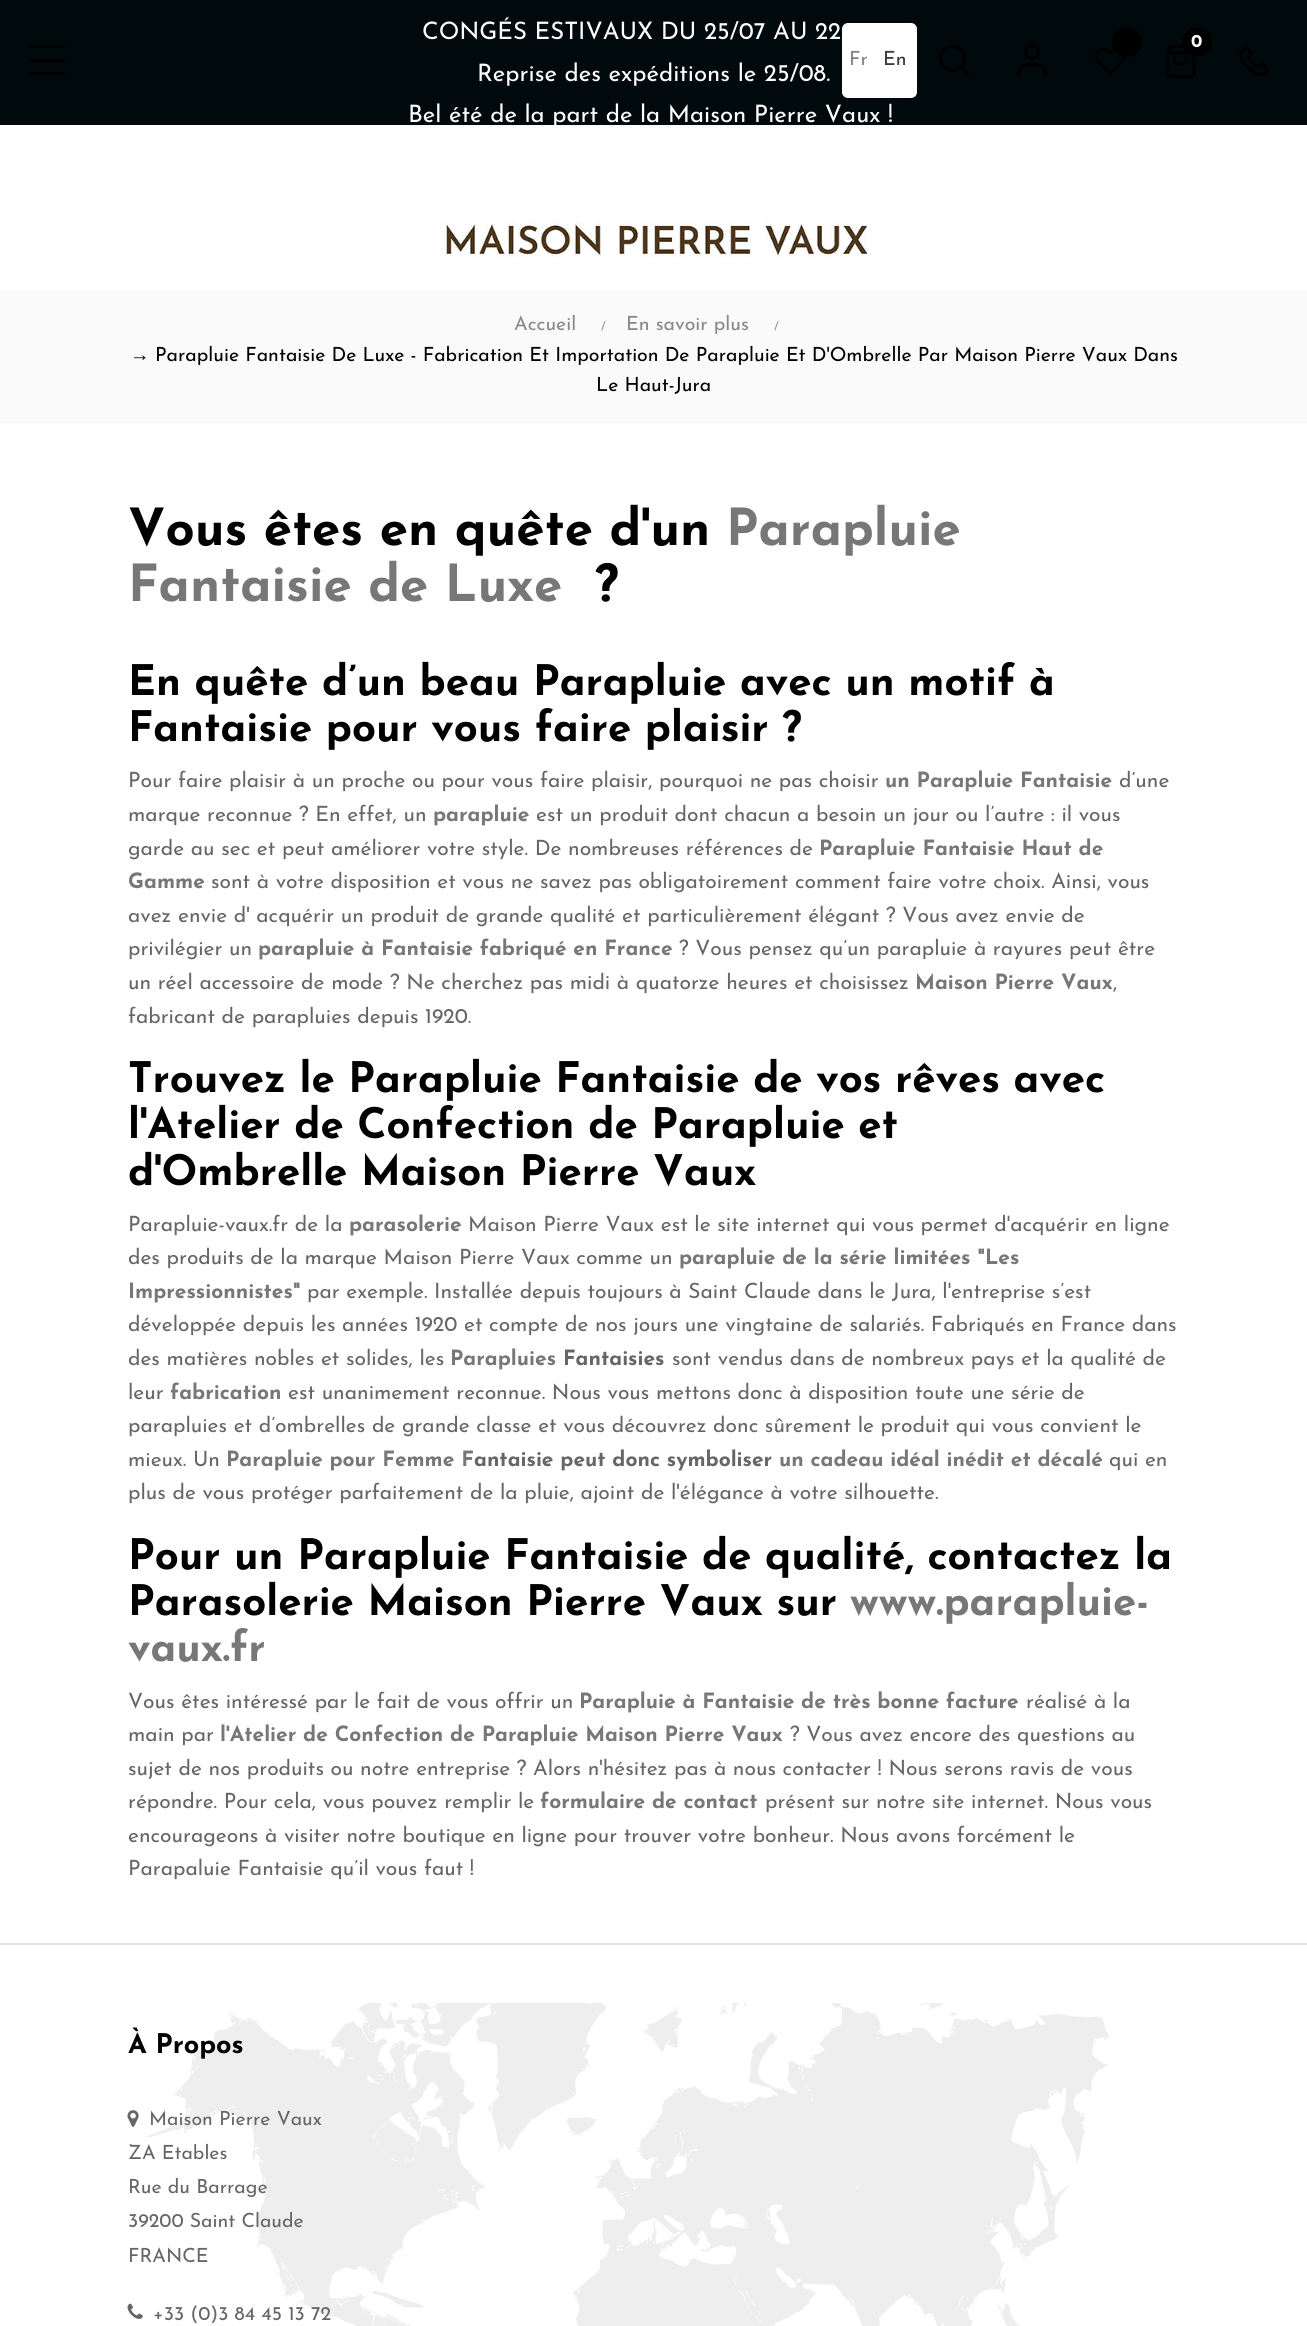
#include <cairo.h>
#include <math.h>
#include <stddef.h>

static cairo_t *ctx;

static void use_color(int r, int g, int b) {
    cairo_set_source_rgb(ctx, r / 255.0, g / 255.0, b / 255.0);
}

static void round_rect(double x, double y, double w, double h, double r) {
    cairo_new_sub_path(ctx);
    cairo_arc(ctx, x + w - r, y + h - r, r, 0, M_PI / 2);
    cairo_arc(ctx, x + r, y + h - r, r, M_PI / 2, M_PI);
    cairo_arc(ctx, x + r, y + r, r, M_PI, 1.5 * M_PI);
    cairo_arc(ctx, x + w - r, y + r, r, 1.5 * M_PI, 2 * M_PI);
    cairo_close_path(ctx);
}

static void picture(const char *path, double x, double y, double w, double h) {
    cairo_surface_t *image = cairo_image_surface_create_from_png(path);
    cairo_save(ctx);
    cairo_set_source_surface(ctx, image, x, y);
    cairo_rectangle(ctx, x, y, w, h);
    cairo_fill(ctx);
    cairo_restore(ctx);
    cairo_surface_destroy(image);
}

int main(void) {
    cairo_surface_t *surface = cairo_image_surface_create(CAIRO_FORMAT_RGB24, 1307, 2326);
    ctx = cairo_create(surface);
    cairo_font_options_t *options = cairo_font_options_create();
    cairo_font_options_set_hint_metrics(options, CAIRO_HINT_METRICS_OFF);
    cairo_font_options_set_hint_style(options, CAIRO_HINT_STYLE_NONE);
    cairo_set_font_options(ctx, options);
    cairo_set_miter_limit(ctx, 4);
    use_color(255, 255, 255);
    cairo_paint(ctx);
    use_color(0, 9, 11);
    cairo_rectangle(ctx, 0, 0, 1307, 125);
    cairo_fill(ctx);
    cairo_select_font_face(ctx, "Josefin Sans", CAIRO_FONT_SLANT_NORMAL, CAIRO_FONT_WEIGHT_NORMAL);
    cairo_set_font_size(ctx, 24);
    use_color(255, 255, 255);
    cairo_move_to(ctx, 422, 39);
    cairo_show_text(ctx, "CONGÉS ESTIVAUX DU 25/07 AU 22");
    cairo_move_to(ctx, 477, 81);
    cairo_show_text(ctx, "Reprise des expéditions le 25/08.");
    cairo_move_to(ctx, 408, 122);
    cairo_show_text(ctx, "Bel été de la part de la Maison Pierre Vaux !");
    use_color(0, 0, 0);
    cairo_rectangle(ctx, 29, 45, 36, 3);
    cairo_fill(ctx);
    cairo_rectangle(ctx, 29, 59, 36, 3);
    cairo_fill(ctx);
    cairo_rectangle(ctx, 29, 72, 36, 3);
    cairo_fill(ctx);
    cairo_save(ctx);
    cairo_rectangle(ctx, 1095, 48, 30, 27);
    cairo_clip(ctx);
    cairo_new_path(ctx);
    cairo_move_to(ctx, 1121.5, 51.5);
    cairo_curve_to(ctx, 1117.5, 47.5, 1113.5, 49.5, 1110, 53);
    cairo_line_to(ctx, 1108.5, 51.5);
    cairo_curve_to(ctx, 1106, 48.5, 1101.5, 48.5, 1098.5, 51.5);
    cairo_curve_to(ctx, 1095.5, 54.5, 1095.5, 59, 1098.5, 62);
    cairo_line_to(ctx, 1110, 74);
    cairo_line_to(ctx, 1117, 67);
    cairo_curve_to(ctx, 1120.5, 63, 1127.5, 57.5, 1121.5, 51.5);
    cairo_close_path(ctx);
    cairo_set_line_width(ctx, 2.7);
    cairo_set_line_cap(ctx, CAIRO_LINE_CAP_ROUND);
    cairo_set_line_join(ctx, CAIRO_LINE_JOIN_ROUND);
    cairo_stroke(ctx);
    cairo_restore(ctx);
    cairo_arc(ctx, 1127, 42, 15, 0, 2 * M_PI);
    cairo_fill(ctx);
    picture("img1.png", 1166, 45, 30, 33);
    cairo_arc(ctx, 1197, 42, 15, 0, 2 * M_PI);
    cairo_fill(ctx);
    cairo_select_font_face(ctx, "Josefin Sans", CAIRO_FONT_SLANT_NORMAL, CAIRO_FONT_WEIGHT_BOLD);
    cairo_set_font_size(ctx, 18);
    use_color(255, 255, 255);
    cairo_move_to(ctx, 1191, 47);
    cairo_show_text(ctx, "0");
    round_rect(842, 23, 75, 75, 6);
    cairo_fill(ctx);
    cairo_select_font_face(ctx, "Josefin Sans", CAIRO_FONT_SLANT_NORMAL, CAIRO_FONT_WEIGHT_NORMAL);
    cairo_set_font_size(ctx, 19.5);
    use_color(128, 130, 133);
    cairo_move_to(ctx, 849, 65);
    cairo_show_text(ctx, "Fr");
    use_color(55, 58, 60);
    cairo_move_to(ctx, 883, 65);
    cairo_show_text(ctx, "En");
    cairo_new_path(ctx);
    cairo_arc(ctx, 952.5, 58.5, 12, 0, 2 * M_PI);
    use_color(0, 0, 0);
    cairo_set_line_width(ctx, 3);
    cairo_stroke(ctx);
    cairo_new_path(ctx);
    cairo_move_to(ctx, 967.5, 73.5);
    cairo_line_to(ctx, 961, 67);
    cairo_set_line_cap(ctx, CAIRO_LINE_CAP_ROUND);
    cairo_set_line_join(ctx, CAIRO_LINE_JOIN_ROUND);
    cairo_stroke(ctx);
    cairo_new_path(ctx);
    cairo_move_to(ctx, 1045.5, 75);
    cairo_line_to(ctx, 1045, 70.5);
    cairo_curve_to(ctx, 1044, 64, 1037, 65, 1032, 65);
    cairo_curve_to(ctx, 1027, 65, 1020, 64, 1019, 70.5);
    cairo_line_to(ctx, 1018.5, 75);
    cairo_set_line_width(ctx, 3.3);
    cairo_stroke(ctx);
    cairo_arc(ctx, 1032, 52, 6.5, 0, 2 * M_PI);
    cairo_set_line_cap(ctx, CAIRO_LINE_CAP_BUTT);
    cairo_set_line_join(ctx, CAIRO_LINE_JOIN_MITER);
    cairo_stroke(ctx);
    picture("img2.png", 1239, 46, 30, 31);
    picture("img3.png", 442, 220, 426, 39);
    use_color(250, 250, 250);
    cairo_rectangle(ctx, 0, 290, 1307, 133);
    cairo_fill(ctx);
    use_color(136, 136, 136);
    cairo_move_to(ctx, 514, 330);
    cairo_show_text(ctx, "Accueil");
    cairo_set_font_size(ctx, 12);
    cairo_move_to(ctx, 601, 330);
    cairo_show_text(ctx, "/");
    cairo_set_font_size(ctx, 19.5);
    cairo_move_to(ctx, 626, 330);
    cairo_show_text(ctx, "En savoir plus");
    cairo_set_font_size(ctx, 12);
    cairo_move_to(ctx, 774, 330);
    cairo_show_text(ctx, "/");
    cairo_select_font_face(ctx, "Liberation Serif", CAIRO_FONT_SLANT_NORMAL, CAIRO_FONT_WEIGHT_NORMAL);
    cairo_set_font_size(ctx, 19.5);
    use_color(0, 0, 0);
    cairo_move_to(ctx, 130, 361);
    cairo_show_text(ctx, "→");
    cairo_select_font_face(ctx, "Josefin Sans", CAIRO_FONT_SLANT_NORMAL, CAIRO_FONT_WEIGHT_NORMAL);
    cairo_move_to(ctx, 155, 361);
    cairo_show_text(ctx, "Parapluie Fantaisie De Luxe - Fabrication Et Importation De Parapluie Et D'Ombrelle Par Maison Pierre Vaux Dans");
    cairo_move_to(ctx, 596, 391);
    cairo_show_text(ctx, "Le Haut-Jura");
    cairo_select_font_face(ctx, "Josefin Sans", CAIRO_FONT_SLANT_NORMAL, CAIRO_FONT_WEIGHT_BOLD);
    cairo_set_font_size(ctx, 51);
    cairo_move_to(ctx, 128, 545);
    cairo_show_text(ctx, "Vous êtes en quête d'un");
    use_color(119, 119, 119);
    cairo_move_to(ctx, 726, 545);
    cairo_show_text(ctx, "Parapluie");
    cairo_move_to(ctx, 128, 601);
    cairo_show_text(ctx, "Fantaisie de Luxe");
    use_color(0, 0, 0);
    cairo_move_to(ctx, 595, 601);
    cairo_show_text(ctx, "?");
    cairo_set_font_size(ctx, 42);
    cairo_move_to(ctx, 128, 695);
    cairo_show_text(ctx, "En quête d’un beau Parapluie avec un motif à");
    cairo_move_to(ctx, 128, 741);
    cairo_show_text(ctx, "Fantaisie pour vous faire plaisir ?");
    cairo_select_font_face(ctx, "Josefin Sans", CAIRO_FONT_SLANT_NORMAL, CAIRO_FONT_WEIGHT_NORMAL);
    cairo_set_font_size(ctx, 21);
    use_color(102, 102, 102);
    cairo_move_to(ctx, 128, 787);
    cairo_show_text(ctx, "Pour faire plaisir à un proche ou pour vous faire plaisir, pourquoi ne pas choisir");
    cairo_select_font_face(ctx, "Josefin Sans", CAIRO_FONT_SLANT_NORMAL, CAIRO_FONT_WEIGHT_BOLD);
    use_color(119, 119, 119);
    cairo_move_to(ctx, 885, 787);
    cairo_show_text(ctx, "un Parapluie Fantaisie");
    cairo_select_font_face(ctx, "Josefin Sans", CAIRO_FONT_SLANT_NORMAL, CAIRO_FONT_WEIGHT_NORMAL);
    use_color(102, 102, 102);
    cairo_move_to(ctx, 1119, 787);
    cairo_show_text(ctx, "d’une");
    cairo_move_to(ctx, 128, 821);
    cairo_show_text(ctx, "marque reconnue ? En effet, un");
    cairo_select_font_face(ctx, "Josefin Sans", CAIRO_FONT_SLANT_NORMAL, CAIRO_FONT_WEIGHT_BOLD);
    use_color(119, 119, 119);
    cairo_move_to(ctx, 433, 821);
    cairo_show_text(ctx, "parapluie");
    cairo_select_font_face(ctx, "Josefin Sans", CAIRO_FONT_SLANT_NORMAL, CAIRO_FONT_WEIGHT_NORMAL);
    use_color(102, 102, 102);
    cairo_move_to(ctx, 536, 821);
    cairo_show_text(ctx, "est un produit dont chacun a besoin un jour ou l’autre : il vous");
    cairo_move_to(ctx, 128, 855);
    cairo_show_text(ctx, "garde au sec et peut améliorer votre style. De nombreuses références de");
    cairo_select_font_face(ctx, "Josefin Sans", CAIRO_FONT_SLANT_NORMAL, CAIRO_FONT_WEIGHT_BOLD);
    use_color(119, 119, 119);
    cairo_move_to(ctx, 819, 855);
    cairo_show_text(ctx, "Parapluie Fantaisie Haut de");
    cairo_move_to(ctx, 128, 888);
    cairo_show_text(ctx, "Gamme");
    cairo_select_font_face(ctx, "Josefin Sans", CAIRO_FONT_SLANT_NORMAL, CAIRO_FONT_WEIGHT_NORMAL);
    use_color(102, 102, 102);
    cairo_move_to(ctx, 211, 888);
    cairo_show_text(ctx, "sont à votre disposition et vous ne savez pas obligatoirement comment faire votre choix. Ainsi, vous");
    cairo_move_to(ctx, 128, 922);
    cairo_show_text(ctx, "avez envie d' acquérir un produit de grande qualité et particulièrement élégant ? Vous avez envie de");
    cairo_move_to(ctx, 128, 955);
    cairo_show_text(ctx, "privilégier un");
    cairo_select_font_face(ctx, "Josefin Sans", CAIRO_FONT_SLANT_NORMAL, CAIRO_FONT_WEIGHT_BOLD);
    use_color(119, 119, 119);
    cairo_move_to(ctx, 258, 955);
    cairo_show_text(ctx, "parapluie à Fantaisie fabriqué en France");
    cairo_select_font_face(ctx, "Josefin Sans", CAIRO_FONT_SLANT_NORMAL, CAIRO_FONT_WEIGHT_NORMAL);
    use_color(102, 102, 102);
    cairo_move_to(ctx, 679, 955);
    cairo_show_text(ctx, "? Vous pensez qu’un parapluie à rayures peut être");
    cairo_move_to(ctx, 128, 989);
    cairo_show_text(ctx, "un réel accessoire de mode ? Ne cherchez pas midi à quatorze heures et choisissez");
    cairo_select_font_face(ctx, "Josefin Sans", CAIRO_FONT_SLANT_NORMAL, CAIRO_FONT_WEIGHT_BOLD);
    use_color(119, 119, 119);
    cairo_move_to(ctx, 915, 989);
    cairo_show_text(ctx, "Maison Pierre Vaux");
    cairo_select_font_face(ctx, "Josefin Sans", CAIRO_FONT_SLANT_NORMAL, CAIRO_FONT_WEIGHT_NORMAL);
    use_color(102, 102, 102);
    cairo_move_to(ctx, 1113, 989);
    cairo_show_text(ctx, ",");
    cairo_move_to(ctx, 128, 1023);
    cairo_show_text(ctx, "fabricant de parapluies depuis 1920.");
    cairo_select_font_face(ctx, "Josefin Sans", CAIRO_FONT_SLANT_NORMAL, CAIRO_FONT_WEIGHT_BOLD);
    cairo_set_font_size(ctx, 42);
    use_color(0, 0, 0);
    cairo_move_to(ctx, 128, 1092);
    cairo_show_text(ctx, "Trouvez le Parapluie Fantaisie de vos rêves avec");
    cairo_move_to(ctx, 128, 1138);
    cairo_show_text(ctx, "l'Atelier de Confection de Parapluie et");
    cairo_move_to(ctx, 128, 1185);
    cairo_show_text(ctx, "d'Ombrelle Maison Pierre Vaux");
    cairo_select_font_face(ctx, "Josefin Sans", CAIRO_FONT_SLANT_NORMAL, CAIRO_FONT_WEIGHT_NORMAL);
    cairo_set_font_size(ctx, 21);
    use_color(102, 102, 102);
    cairo_move_to(ctx, 128, 1231);
    cairo_show_text(ctx, "Parapluie-vaux.fr de la");
    cairo_select_font_face(ctx, "Josefin Sans", CAIRO_FONT_SLANT_NORMAL, CAIRO_FONT_WEIGHT_BOLD);
    use_color(119, 119, 119);
    cairo_move_to(ctx, 349, 1231);
    cairo_show_text(ctx, "parasolerie");
    cairo_select_font_face(ctx, "Josefin Sans", CAIRO_FONT_SLANT_NORMAL, CAIRO_FONT_WEIGHT_NORMAL);
    use_color(102, 102, 102);
    cairo_move_to(ctx, 468, 1231);
    cairo_show_text(ctx, "Maison Pierre Vaux est le site internet qui vous permet d'acquérir en ligne");
    cairo_move_to(ctx, 128, 1264);
    cairo_show_text(ctx, "des produits de la marque Maison Pierre Vaux comme un");
    cairo_select_font_face(ctx, "Josefin Sans", CAIRO_FONT_SLANT_NORMAL, CAIRO_FONT_WEIGHT_BOLD);
    use_color(119, 119, 119);
    cairo_move_to(ctx, 679, 1264);
    cairo_show_text(ctx, "parapluie de la série limitées \"Les");
    cairo_move_to(ctx, 128, 1298);
    cairo_show_text(ctx, "Impressionnistes\"");
    cairo_select_font_face(ctx, "Josefin Sans", CAIRO_FONT_SLANT_NORMAL, CAIRO_FONT_WEIGHT_NORMAL);
    use_color(102, 102, 102);
    cairo_move_to(ctx, 307, 1298);
    cairo_show_text(ctx, "par exemple. Installée depuis toujours à Saint Claude dans le Jura, l'entreprise s’est");
    cairo_move_to(ctx, 128, 1331);
    cairo_show_text(ctx, "développée depuis les années 1920 et compte de nos jours une vingtaine de salariés. Fabriqués en France dans");
    cairo_move_to(ctx, 128, 1365);
    cairo_show_text(ctx, "des matières nobles et solides, les");
    cairo_select_font_face(ctx, "Josefin Sans", CAIRO_FONT_SLANT_NORMAL, CAIRO_FONT_WEIGHT_BOLD);
    use_color(119, 119, 119);
    cairo_move_to(ctx, 450, 1365);
    cairo_show_text(ctx, "Parapluies");
    use_color(102, 102, 102);
    cairo_move_to(ctx, 563, 1365);
    cairo_show_text(ctx, "Fantaisies");
    cairo_select_font_face(ctx, "Josefin Sans", CAIRO_FONT_SLANT_NORMAL, CAIRO_FONT_WEIGHT_NORMAL);
    cairo_move_to(ctx, 672, 1365);
    cairo_show_text(ctx, "sont vendus dans de nombreux pays et la qualité de");
    cairo_move_to(ctx, 128, 1399);
    cairo_show_text(ctx, "leur");
    cairo_select_font_face(ctx, "Josefin Sans", CAIRO_FONT_SLANT_NORMAL, CAIRO_FONT_WEIGHT_BOLD);
    use_color(119, 119, 119);
    cairo_move_to(ctx, 170, 1399);
    cairo_show_text(ctx, "fabrication");
    cairo_select_font_face(ctx, "Josefin Sans", CAIRO_FONT_SLANT_NORMAL, CAIRO_FONT_WEIGHT_NORMAL);
    use_color(102, 102, 102);
    cairo_move_to(ctx, 288, 1399);
    cairo_show_text(ctx, "est unanimement reconnue. Nous vous mettons donc à disposition toute une série de");
    cairo_move_to(ctx, 128, 1432);
    cairo_show_text(ctx, "parapluies et d’ombrelles de grande classe et vous découvrez donc sûrement le produit qui vous convient le");
    cairo_move_to(ctx, 128, 1466);
    cairo_show_text(ctx, "mieux. Un");
    cairo_select_font_face(ctx, "Josefin Sans", CAIRO_FONT_SLANT_NORMAL, CAIRO_FONT_WEIGHT_BOLD);
    use_color(119, 119, 119);
    cairo_move_to(ctx, 226, 1466);
    cairo_show_text(ctx, "Parapluie pour Femme F");
    use_color(102, 102, 102);
    cairo_move_to(ctx, 474, 1466);
    cairo_show_text(ctx, "antaisie peut donc symboliser");
    use_color(119, 119, 119);
    cairo_move_to(ctx, 779, 1466);
    cairo_show_text(ctx, "un cadeau idéal inédit et décalé");
    cairo_select_font_face(ctx, "Josefin Sans", CAIRO_FONT_SLANT_NORMAL, CAIRO_FONT_WEIGHT_NORMAL);
    use_color(102, 102, 102);
    cairo_move_to(ctx, 1109, 1466);
    cairo_show_text(ctx, "qui en");
    cairo_move_to(ctx, 128, 1499);
    cairo_show_text(ctx, "plus de vous protéger parfaitement de la pluie, ajoint de l'élégance à votre silhouette.");
    cairo_select_font_face(ctx, "Josefin Sans", CAIRO_FONT_SLANT_NORMAL, CAIRO_FONT_WEIGHT_BOLD);
    cairo_set_font_size(ctx, 42);
    use_color(0, 0, 0);
    cairo_move_to(ctx, 128, 1569);
    cairo_show_text(ctx, "Pour un Parapluie Fantaisie de qualité, contactez la");
    cairo_move_to(ctx, 128, 1615);
    cairo_show_text(ctx, "Parasolerie Maison Pierre Vaux sur");
    use_color(119, 119, 119);
    cairo_move_to(ctx, 850, 1615);
    cairo_show_text(ctx, "www.parapluie-");
    cairo_move_to(ctx, 128, 1661);
    cairo_show_text(ctx, "vaux.fr");
    cairo_select_font_face(ctx, "Josefin Sans", CAIRO_FONT_SLANT_NORMAL, CAIRO_FONT_WEIGHT_NORMAL);
    cairo_set_font_size(ctx, 21);
    use_color(102, 102, 102);
    cairo_move_to(ctx, 128, 1708);
    cairo_show_text(ctx, "Vous êtes intéressé par le fait de vous offrir un");
    cairo_select_font_face(ctx, "Josefin Sans", CAIRO_FONT_SLANT_NORMAL, CAIRO_FONT_WEIGHT_BOLD);
    use_color(119, 119, 119);
    cairo_move_to(ctx, 579, 1708);
    cairo_show_text(ctx, "Parapluie à Fantaisie de très bonne facture");
    cairo_select_font_face(ctx, "Josefin Sans", CAIRO_FONT_SLANT_NORMAL, CAIRO_FONT_WEIGHT_NORMAL);
    use_color(102, 102, 102);
    cairo_move_to(ctx, 1026, 1708);
    cairo_show_text(ctx, "réalisé à la");
    cairo_move_to(ctx, 128, 1741);
    cairo_show_text(ctx, "main par");
    cairo_select_font_face(ctx, "Josefin Sans", CAIRO_FONT_SLANT_NORMAL, CAIRO_FONT_WEIGHT_BOLD);
    use_color(119, 119, 119);
    cairo_move_to(ctx, 220, 1741);
    cairo_show_text(ctx, "l'Atelier de Confection de Parapluie Maison Pierre Vaux");
    cairo_select_font_face(ctx, "Josefin Sans", CAIRO_FONT_SLANT_NORMAL, CAIRO_FONT_WEIGHT_NORMAL);
    use_color(102, 102, 102);
    cairo_move_to(ctx, 790, 1741);
    cairo_show_text(ctx, "? Vous avez encore des questions au");
    cairo_move_to(ctx, 128, 1775);
    cairo_show_text(ctx, "sujet de nos produits ou notre entreprise ? Alors n'hésitez pas à nous contacter ! Nous serons ravis de vous");
    cairo_move_to(ctx, 128, 1808);
    cairo_show_text(ctx, "répondre. Pour cela, vous pouvez remplir le");
    cairo_select_font_face(ctx, "Josefin Sans", CAIRO_FONT_SLANT_NORMAL, CAIRO_FONT_WEIGHT_BOLD);
    use_color(119, 119, 119);
    cairo_move_to(ctx, 540, 1808);
    cairo_show_text(ctx, "formulaire de contact");
    cairo_select_font_face(ctx, "Josefin Sans", CAIRO_FONT_SLANT_NORMAL, CAIRO_FONT_WEIGHT_NORMAL);
    use_color(102, 102, 102);
    cairo_move_to(ctx, 765, 1808);
    cairo_show_text(ctx, "présent sur notre site internet. Nous vous");
    cairo_move_to(ctx, 128, 1842);
    cairo_show_text(ctx, "encourageons à visiter notre boutique en ligne pour trouver votre bonheur. Nous avons forcément le");
    cairo_move_to(ctx, 128, 1875);
    cairo_show_text(ctx, "Parapaluie Fantaisie qu’il vous faut !");
    use_color(227, 227, 227);
    cairo_rectangle(ctx, 0, 1943, 1307, 2);
    cairo_fill(ctx);
    picture("img4.png", 145, 2003, 965, 323);
    cairo_select_font_face(ctx, "Josefin Sans", CAIRO_FONT_SLANT_NORMAL, CAIRO_FONT_WEIGHT_BOLD);
    cairo_set_font_size(ctx, 27);
    use_color(0, 0, 0);
    cairo_move_to(ctx, 128, 2053);
    cairo_show_text(ctx, "À Propos");
    picture("img5.png", 127, 2110, 12, 17);
    cairo_select_font_face(ctx, "Josefin Sans", CAIRO_FONT_SLANT_NORMAL, CAIRO_FONT_WEIGHT_NORMAL);
    cairo_set_font_size(ctx, 19.5);
    use_color(102, 102, 102);
    cairo_move_to(ctx, 149, 2125);
    cairo_show_text(ctx, "Maison Pierre Vaux");
    cairo_move_to(ctx, 128, 2159);
    cairo_show_text(ctx, "ZA Etables");
    cairo_move_to(ctx, 128, 2193);
    cairo_show_text(ctx, "Rue du Barrage");
    cairo_move_to(ctx, 128, 2227);
    cairo_show_text(ctx, "39200 Saint Claude");
    cairo_move_to(ctx, 128, 2262);
    cairo_show_text(ctx, "FRANCE");
    picture("img6.png", 127, 2303, 16, 16);
    cairo_move_to(ctx, 153, 2320);
    cairo_show_text(ctx, "+33 (0)3 84 45 13 72");
    cairo_surface_write_to_png(surface, "result.png");
    cairo_font_options_destroy(options);
    cairo_destroy(ctx);
    cairo_surface_destroy(surface);
    return 0;
}
